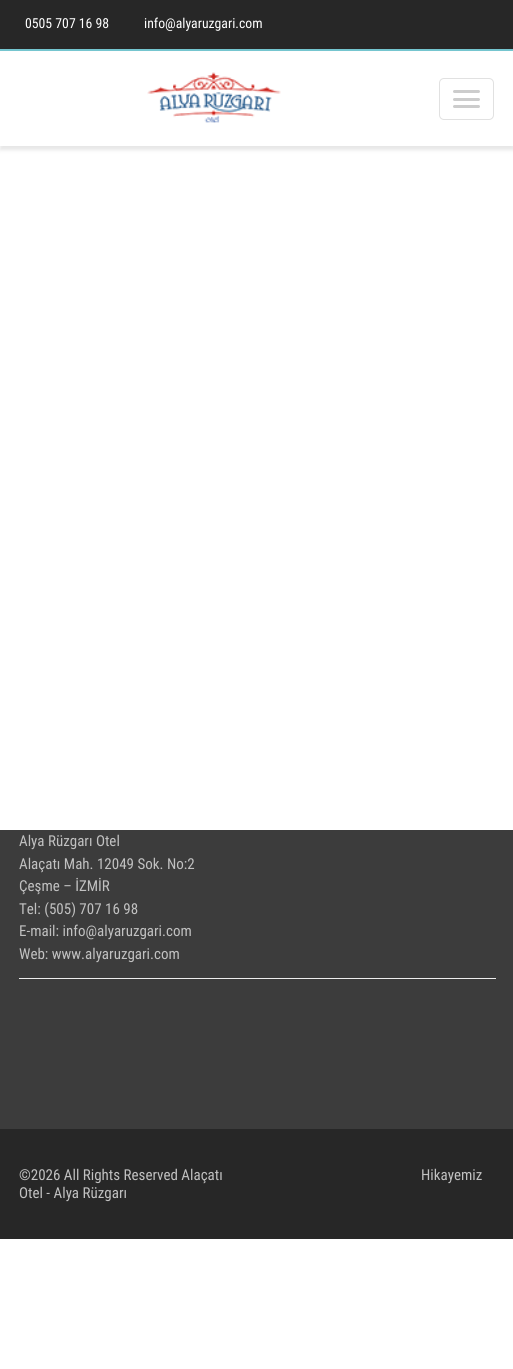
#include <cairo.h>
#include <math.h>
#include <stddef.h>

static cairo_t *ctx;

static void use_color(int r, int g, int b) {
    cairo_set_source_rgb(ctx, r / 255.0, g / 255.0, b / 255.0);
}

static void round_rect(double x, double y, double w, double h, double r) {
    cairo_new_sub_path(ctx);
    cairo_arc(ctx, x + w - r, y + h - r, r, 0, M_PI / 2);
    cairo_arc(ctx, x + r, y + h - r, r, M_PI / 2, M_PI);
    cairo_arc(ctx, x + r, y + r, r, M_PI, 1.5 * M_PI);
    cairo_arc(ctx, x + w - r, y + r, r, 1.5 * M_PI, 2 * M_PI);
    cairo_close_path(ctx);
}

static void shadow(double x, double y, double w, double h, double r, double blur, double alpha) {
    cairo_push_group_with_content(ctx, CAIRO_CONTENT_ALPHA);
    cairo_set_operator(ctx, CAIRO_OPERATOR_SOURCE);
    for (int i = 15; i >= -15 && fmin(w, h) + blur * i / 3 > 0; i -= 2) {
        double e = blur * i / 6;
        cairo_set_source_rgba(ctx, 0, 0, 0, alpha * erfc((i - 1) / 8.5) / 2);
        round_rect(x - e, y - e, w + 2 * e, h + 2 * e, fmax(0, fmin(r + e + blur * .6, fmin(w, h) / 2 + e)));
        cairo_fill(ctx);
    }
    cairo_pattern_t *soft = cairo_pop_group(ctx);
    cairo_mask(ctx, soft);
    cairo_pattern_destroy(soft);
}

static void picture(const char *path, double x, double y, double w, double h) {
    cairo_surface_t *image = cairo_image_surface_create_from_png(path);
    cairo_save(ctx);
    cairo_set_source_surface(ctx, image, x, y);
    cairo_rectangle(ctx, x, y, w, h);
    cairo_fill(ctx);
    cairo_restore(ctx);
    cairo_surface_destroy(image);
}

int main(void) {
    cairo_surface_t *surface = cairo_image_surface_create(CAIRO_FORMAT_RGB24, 513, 1369);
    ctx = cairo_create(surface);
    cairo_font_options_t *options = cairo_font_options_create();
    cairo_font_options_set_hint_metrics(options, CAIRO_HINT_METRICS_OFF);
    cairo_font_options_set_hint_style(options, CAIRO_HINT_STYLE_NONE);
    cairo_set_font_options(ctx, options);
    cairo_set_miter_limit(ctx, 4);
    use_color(255, 255, 255);
    cairo_paint(ctx);
    use_color(39, 39, 39);
    cairo_rectangle(ctx, 0, 0, 513, 49);
    cairo_fill(ctx);
    cairo_select_font_face(ctx, "Roboto Condensed", CAIRO_FONT_SLANT_NORMAL, CAIRO_FONT_WEIGHT_NORMAL);
    cairo_set_font_size(ctx, 13.75);
    use_color(255, 255, 255);
    cairo_move_to(ctx, 25, 28);
    cairo_show_text(ctx, "0505 707 16 98");
    cairo_move_to(ctx, 144, 28);
    cairo_show_text(ctx, "info@alyaruzgari.com");
    use_color(117, 197, 207);
    cairo_rectangle(ctx, 0, 49, 513, 2);
    cairo_fill(ctx);
    use_color(0, 0, 0);
    shadow(0, 55, 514, 95, 0, 2, 0.1);
    use_color(255, 255, 255);
    cairo_rectangle(ctx, 0, 52, 513, 94);
    cairo_fill(ctx);
    picture("img1.png", 147, 72, 134, 51);
    round_rect(439.5, 78.5, 54, 41, 4.5);
    use_color(225, 225, 225);
    cairo_set_line_width(ctx, 1);
    cairo_stroke(ctx);
    use_color(204, 204, 204);
    round_rect(453, 90, 27, 3, 1.5);
    cairo_fill(ctx);
    round_rect(453, 98, 27, 3, 1.5);
    cairo_fill(ctx);
    round_rect(453, 105, 27, 3, 1.5);
    cairo_fill(ctx);
    use_color(60, 60, 60);
    cairo_rectangle(ctx, 0, 830, 513, 299);
    cairo_fill(ctx);
    cairo_set_font_size(ctx, 15);
    use_color(193, 193, 193);
    cairo_move_to(ctx, 19, 846);
    cairo_show_text(ctx, "Alya Rüzgarı Otel");
    cairo_move_to(ctx, 19, 869);
    cairo_show_text(ctx, "Alaçatı Mah. 12049 Sok. No:2");
    cairo_move_to(ctx, 19, 891);
    cairo_show_text(ctx, "Çeşme – İZMİR");
    cairo_move_to(ctx, 19, 914);
    cairo_show_text(ctx, "Tel: (505) 707 16 98");
    cairo_move_to(ctx, 19, 936);
    cairo_show_text(ctx, "E-mail: info@alyaruzgari.com");
    cairo_move_to(ctx, 19, 959);
    cairo_show_text(ctx, "Web: www.alyaruzgari.com");
    use_color(237, 237, 237);
    cairo_rectangle(ctx, 19, 978, 477, 1);
    cairo_fill(ctx);
    use_color(39, 39, 39);
    cairo_rectangle(ctx, 0, 1129, 513, 110);
    cairo_fill(ctx);
    use_color(193, 193, 193);
    cairo_move_to(ctx, 19, 1180);
    cairo_show_text(ctx, "©2026 All Rights Reserved Alaçatı");
    cairo_move_to(ctx, 19, 1198);
    cairo_show_text(ctx, "Otel - Alya Rüzgarı");
    cairo_move_to(ctx, 421, 1180);
    cairo_show_text(ctx, "Hikayemiz");
    cairo_surface_write_to_png(surface, "result.png");
    cairo_font_options_destroy(options);
    cairo_destroy(ctx);
    cairo_surface_destroy(surface);
    return 0;
}
